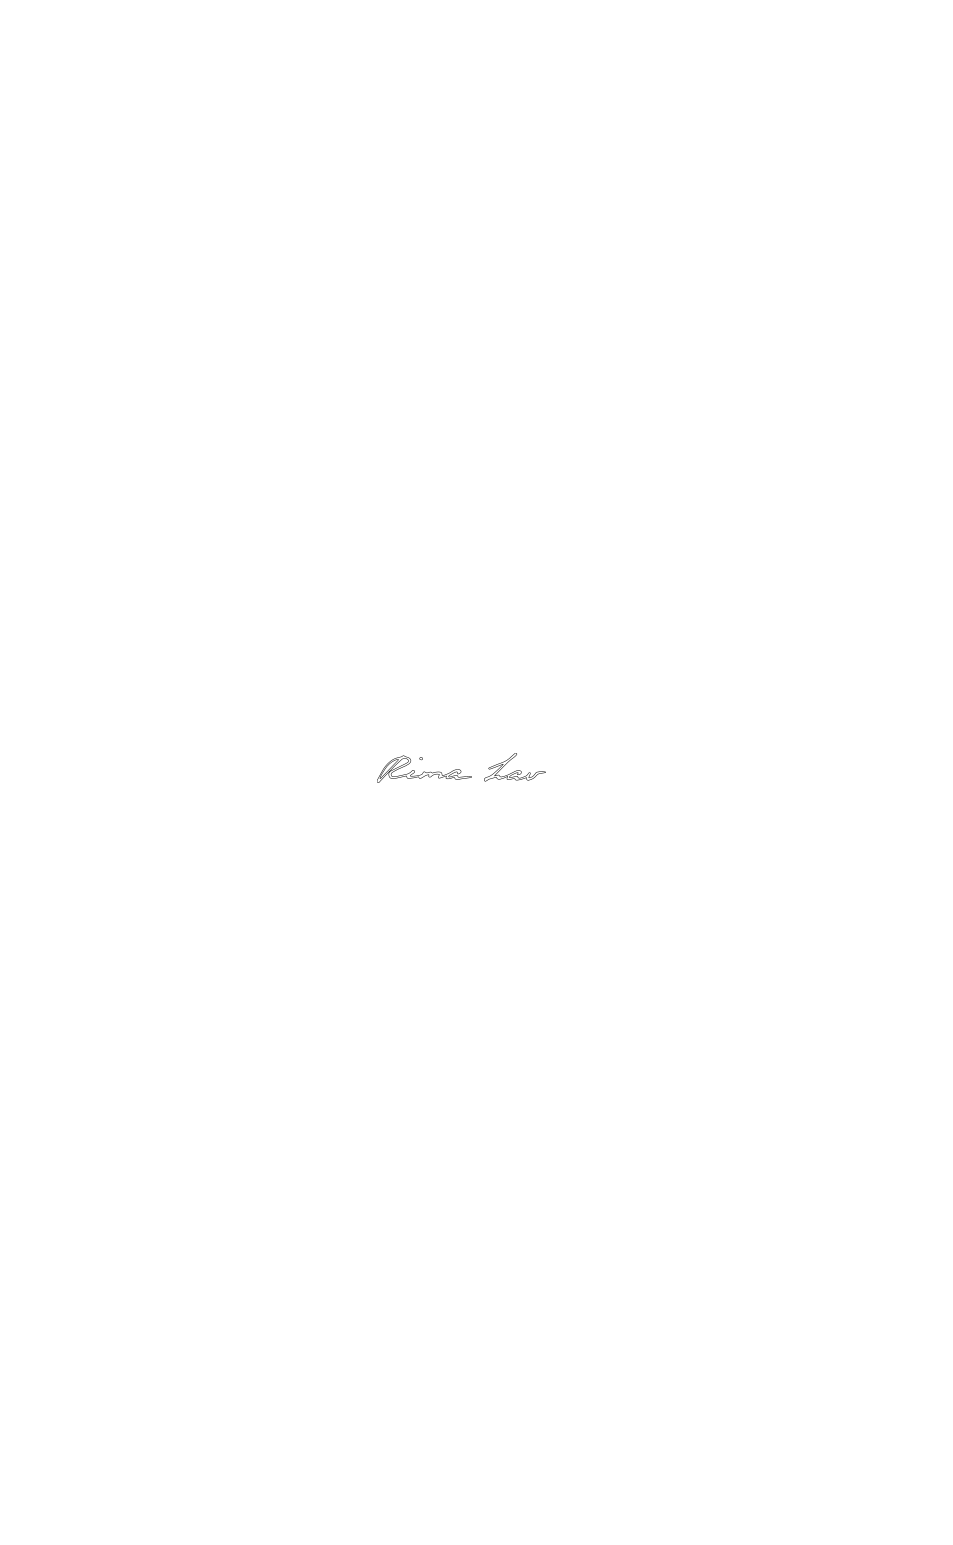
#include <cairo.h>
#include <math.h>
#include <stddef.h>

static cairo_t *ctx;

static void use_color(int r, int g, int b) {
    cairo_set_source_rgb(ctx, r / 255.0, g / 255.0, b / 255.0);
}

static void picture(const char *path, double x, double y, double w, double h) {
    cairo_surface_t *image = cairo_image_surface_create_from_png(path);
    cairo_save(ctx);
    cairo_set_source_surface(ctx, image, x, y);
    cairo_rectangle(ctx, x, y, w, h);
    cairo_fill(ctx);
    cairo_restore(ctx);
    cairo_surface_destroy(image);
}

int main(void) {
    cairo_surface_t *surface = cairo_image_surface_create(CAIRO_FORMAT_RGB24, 953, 1545);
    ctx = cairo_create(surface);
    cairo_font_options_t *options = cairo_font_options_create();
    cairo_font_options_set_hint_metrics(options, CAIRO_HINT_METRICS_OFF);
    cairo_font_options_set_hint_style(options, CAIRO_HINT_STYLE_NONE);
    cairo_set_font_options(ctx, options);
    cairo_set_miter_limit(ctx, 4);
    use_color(255, 255, 255);
    cairo_paint(ctx);
    picture("img1.png", 377, 753, 169, 30);
    cairo_surface_write_to_png(surface, "result.png");
    cairo_font_options_destroy(options);
    cairo_destroy(ctx);
    cairo_surface_destroy(surface);
    return 0;
}
